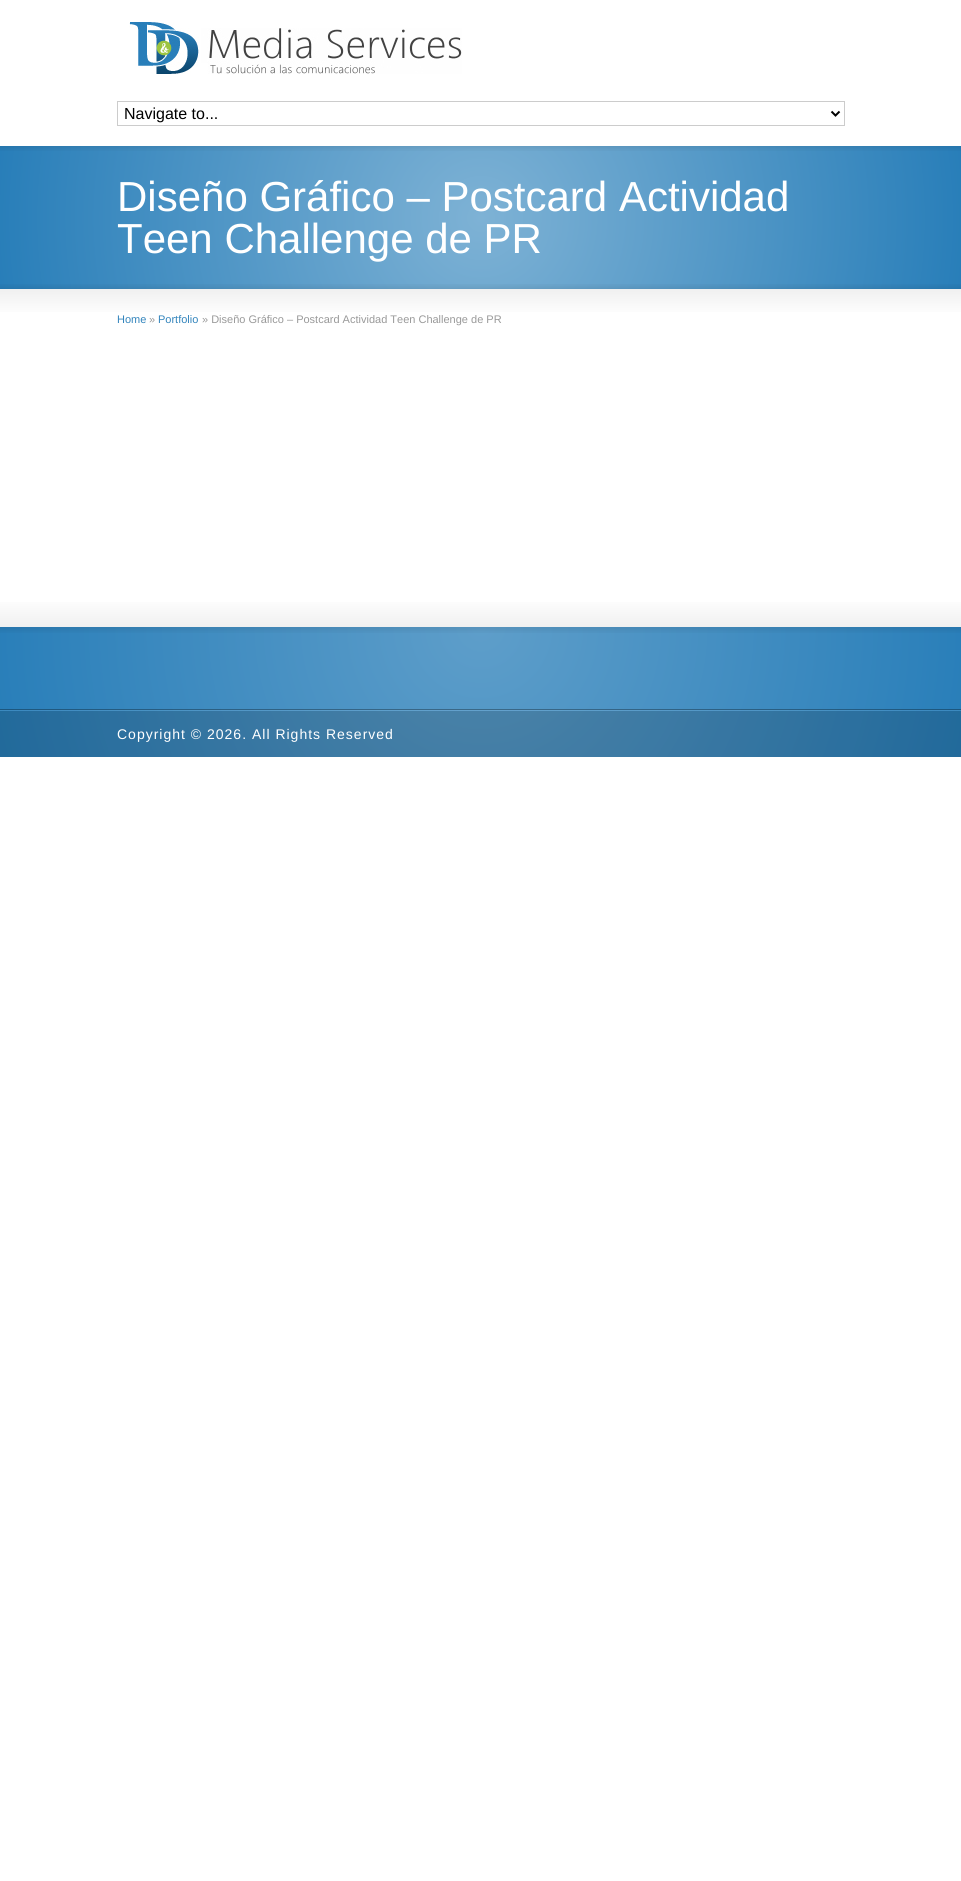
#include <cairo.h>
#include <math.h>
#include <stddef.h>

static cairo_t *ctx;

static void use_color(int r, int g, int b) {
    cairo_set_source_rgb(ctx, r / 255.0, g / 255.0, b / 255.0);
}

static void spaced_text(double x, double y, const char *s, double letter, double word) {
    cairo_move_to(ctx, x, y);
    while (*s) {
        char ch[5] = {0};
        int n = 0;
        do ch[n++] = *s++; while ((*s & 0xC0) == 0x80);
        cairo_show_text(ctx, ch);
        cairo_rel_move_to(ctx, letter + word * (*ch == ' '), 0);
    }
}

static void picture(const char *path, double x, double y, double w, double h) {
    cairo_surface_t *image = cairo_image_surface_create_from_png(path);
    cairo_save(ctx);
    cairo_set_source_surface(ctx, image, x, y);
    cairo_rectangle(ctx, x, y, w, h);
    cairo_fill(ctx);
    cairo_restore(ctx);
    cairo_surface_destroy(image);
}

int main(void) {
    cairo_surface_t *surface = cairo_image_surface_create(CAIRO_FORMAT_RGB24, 961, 1881);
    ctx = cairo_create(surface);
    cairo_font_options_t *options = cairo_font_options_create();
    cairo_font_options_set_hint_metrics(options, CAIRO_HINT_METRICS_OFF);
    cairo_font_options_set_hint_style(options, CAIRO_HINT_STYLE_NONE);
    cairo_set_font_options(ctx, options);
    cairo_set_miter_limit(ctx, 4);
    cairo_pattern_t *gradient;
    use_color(255, 255, 255);
    cairo_paint(ctx);
    picture("img1.png", 129, 22, 333, 52);
    cairo_rectangle(ctx, 117.5, 101.5, 727, 24);
    use_color(204, 204, 204);
    cairo_set_line_width(ctx, 1);
    cairo_stroke(ctx);
    cairo_new_path(ctx);
    cairo_move_to(ctx, 831.5, 111.5);
    cairo_line_to(ctx, 835.5, 115.5);
    cairo_line_to(ctx, 839.5, 111.5);
    use_color(0, 0, 0);
    cairo_set_line_width(ctx, 2);
    cairo_stroke(ctx);
    cairo_select_font_face(ctx, "Liberation Sans", CAIRO_FONT_SLANT_NORMAL, CAIRO_FONT_WEIGHT_NORMAL);
    cairo_set_font_size(ctx, 16);
    cairo_move_to(ctx, 124, 119);
    cairo_show_text(ctx, "Navigate to...");
    gradient = cairo_pattern_create_radial(481, 218, 0, 481, 218, 486);
    cairo_pattern_add_color_stop_rgba(gradient, 0, 0.494, 0.698, 0.835, 1);
    cairo_pattern_add_color_stop_rgba(gradient, 1, 0.157, 0.494, 0.725, 1);
    cairo_set_source(ctx, gradient);
    cairo_pattern_destroy(gradient);
    cairo_rectangle(ctx, 0, 146, 961, 143);
    cairo_fill(ctx);
    picture("img2.png", 0, 146, 961, 5);
    cairo_set_font_size(ctx, 42);
    use_color(255, 255, 255);
    cairo_move_to(ctx, 117, 211);
    cairo_show_text(ctx, "Diseño Gráfico – Postcard Actividad");
    cairo_move_to(ctx, 117, 253);
    cairo_show_text(ctx, "Teen Challenge de PR");
    picture("img3.png", 0, 284, 961, 5);
    gradient = cairo_pattern_create_linear(481, 289, 481, 316);
    cairo_pattern_add_color_stop_rgba(gradient, 0, 0.941, 0.941, 0.941, 1);
    cairo_pattern_add_color_stop_rgba(gradient, 1, 1, 1, 1, 1);
    cairo_set_source(ctx, gradient);
    cairo_pattern_destroy(gradient);
    cairo_rectangle(ctx, 0, 289, 961, 23);
    cairo_fill(ctx);
    cairo_set_font_size(ctx, 11);
    use_color(50, 132, 188);
    cairo_move_to(ctx, 117, 323);
    cairo_show_text(ctx, "Home");
    use_color(153, 153, 153);
    cairo_move_to(ctx, 149, 323);
    cairo_show_text(ctx, "»");
    use_color(50, 132, 188);
    cairo_move_to(ctx, 158, 323);
    cairo_show_text(ctx, "Portfolio");
    use_color(153, 153, 153);
    cairo_move_to(ctx, 202, 323);
    cairo_show_text(ctx, "» Diseño Gráfico – Postcard Actividad Teen Challenge de PR");
    gradient = cairo_pattern_create_linear(481, 597, 481, 627);
    cairo_pattern_add_color_stop_rgba(gradient, 0, 1, 1, 1, 1);
    cairo_pattern_add_color_stop_rgba(gradient, 1, 0.941, 0.941, 0.941, 1);
    cairo_set_source(ctx, gradient);
    cairo_pattern_destroy(gradient);
    cairo_rectangle(ctx, 0, 602, 961, 25);
    cairo_fill(ctx);
    gradient = cairo_pattern_create_radial(481, 627, 0, 481, 627, 498);
    cairo_pattern_add_color_stop_rgba(gradient, 0, 0.369, 0.62, 0.792, 1);
    cairo_pattern_add_color_stop_rgba(gradient, 1, 0.157, 0.494, 0.725, 1);
    cairo_set_source(ctx, gradient);
    cairo_pattern_destroy(gradient);
    cairo_rectangle(ctx, 0, 627, 961, 130);
    cairo_fill(ctx);
    picture("img4.png", 0, 627, 961, 6);
    picture("img5.png", 0, 709, 961, 48);
    cairo_set_font_size(ctx, 14);
    use_color(255, 255, 255);
    spaced_text(117, 739, "Copyright © 2026. All Rights Reserved", 1, 0);
    cairo_surface_write_to_png(surface, "result.png");
    cairo_font_options_destroy(options);
    cairo_destroy(ctx);
    cairo_surface_destroy(surface);
    return 0;
}
